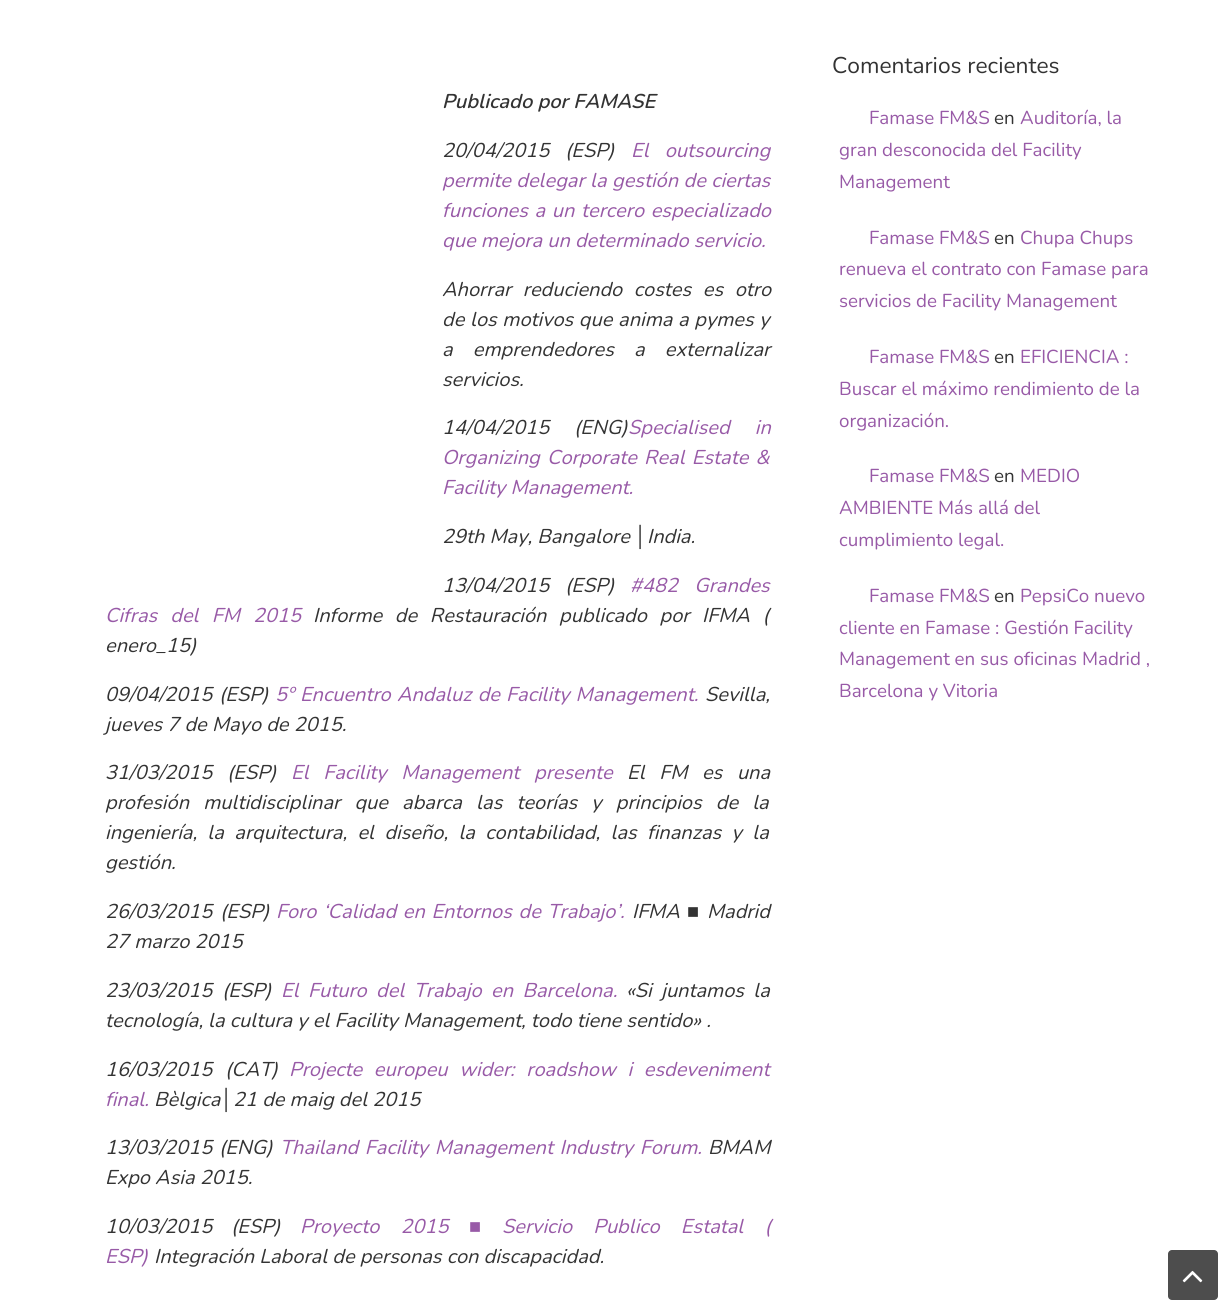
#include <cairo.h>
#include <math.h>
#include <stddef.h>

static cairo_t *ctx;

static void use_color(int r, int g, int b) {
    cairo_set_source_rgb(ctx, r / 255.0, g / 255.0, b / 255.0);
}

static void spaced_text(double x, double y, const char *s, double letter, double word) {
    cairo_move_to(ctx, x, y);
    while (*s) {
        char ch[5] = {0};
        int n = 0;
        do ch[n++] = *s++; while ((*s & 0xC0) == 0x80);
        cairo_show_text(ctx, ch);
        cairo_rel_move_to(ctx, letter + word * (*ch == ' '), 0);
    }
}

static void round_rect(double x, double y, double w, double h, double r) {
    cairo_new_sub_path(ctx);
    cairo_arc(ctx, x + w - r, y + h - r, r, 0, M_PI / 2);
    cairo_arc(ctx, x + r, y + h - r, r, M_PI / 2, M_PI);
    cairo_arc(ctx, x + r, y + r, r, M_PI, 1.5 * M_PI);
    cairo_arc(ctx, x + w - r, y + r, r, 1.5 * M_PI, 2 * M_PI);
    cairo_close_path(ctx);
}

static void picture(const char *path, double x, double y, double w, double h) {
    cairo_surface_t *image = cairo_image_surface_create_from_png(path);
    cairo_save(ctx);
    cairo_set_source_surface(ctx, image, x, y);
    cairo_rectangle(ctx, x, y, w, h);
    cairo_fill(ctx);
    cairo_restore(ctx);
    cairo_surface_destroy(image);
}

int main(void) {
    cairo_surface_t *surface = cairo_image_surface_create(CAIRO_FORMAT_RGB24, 1223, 1306);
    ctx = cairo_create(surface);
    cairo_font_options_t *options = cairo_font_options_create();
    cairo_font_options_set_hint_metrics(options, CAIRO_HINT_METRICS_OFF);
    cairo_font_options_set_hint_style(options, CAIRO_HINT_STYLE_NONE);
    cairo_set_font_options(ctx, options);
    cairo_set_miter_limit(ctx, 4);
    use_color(255, 255, 255);
    cairo_paint(ctx);
    cairo_select_font_face(ctx, "Nunito SemiBold", CAIRO_FONT_SLANT_ITALIC, CAIRO_FONT_WEIGHT_NORMAL);
    cairo_set_font_size(ctx, 20);
    use_color(51, 51, 51);
    cairo_move_to(ctx, 442, 108);
    cairo_show_text(ctx, "Publicado por FAMASE");
    cairo_select_font_face(ctx, "Nunito", CAIRO_FONT_SLANT_ITALIC, CAIRO_FONT_WEIGHT_NORMAL);
    cairo_move_to(ctx, 442, 157);
    cairo_show_text(ctx, "20/04/2015");
    cairo_move_to(ctx, 565, 157);
    cairo_show_text(ctx, "(ESP)");
    use_color(152, 90, 167);
    spaced_text(631, 157, "El outsourcing", 0, 11);
    spaced_text(442, 187, "permite delegar la gestión de ciertas", 0, 0.25);
    spaced_text(442, 217, "funciones a un tercero especializado", 0, 1.5);
    cairo_move_to(ctx, 442, 247);
    cairo_show_text(ctx, "que mejora un determinado servicio.");
    use_color(51, 51, 51);
    spaced_text(442, 296, "Ahorrar reduciendo costes es otro", 0, 6.5);
    spaced_text(442, 326, "de los motivos que anima a pymes y", 0, 0.5);
    spaced_text(442, 356, "a emprendedores a externalizar", 0, 15);
    cairo_move_to(ctx, 442, 386);
    cairo_show_text(ctx, "servicios.");
    cairo_move_to(ctx, 442, 434);
    cairo_show_text(ctx, "14/04/2015");
    cairo_move_to(ctx, 574, 434);
    cairo_show_text(ctx, "(ENG)");
    use_color(152, 90, 167);
    spaced_text(628, 434, "Specialised in", 0, 20);
    spaced_text(442, 464, "Organizing Corporate Real Estate &", 0, 2);
    cairo_move_to(ctx, 442, 494);
    cairo_show_text(ctx, "Facility Management.");
    use_color(51, 51, 51);
    cairo_move_to(ctx, 442, 543);
    cairo_show_text(ctx, "29th May, Bangalore");
    cairo_select_font_face(ctx, "Liberation Serif", CAIRO_FONT_SLANT_ITALIC, CAIRO_FONT_WEIGHT_NORMAL);
    cairo_move_to(ctx, 635, 543);
    cairo_show_text(ctx, "│");
    cairo_select_font_face(ctx, "Nunito", CAIRO_FONT_SLANT_ITALIC, CAIRO_FONT_WEIGHT_NORMAL);
    cairo_move_to(ctx, 647, 543);
    cairo_show_text(ctx, "India.");
    cairo_move_to(ctx, 442, 592);
    cairo_show_text(ctx, "13/04/2015");
    cairo_move_to(ctx, 565, 592);
    cairo_show_text(ctx, "(ESP)");
    use_color(152, 90, 167);
    spaced_text(630, 592, "#482 Grandes", 0, 11);
    spaced_text(105, 622, "Cifras del FM 2015", 0, 8);
    use_color(51, 51, 51);
    spaced_text(313, 622, "Informe de Restauración publicado por IFMA (", 0, 7.5);
    cairo_move_to(ctx, 105, 652);
    cairo_show_text(ctx, "enero_15)");
    cairo_move_to(ctx, 105, 701);
    cairo_show_text(ctx, "09/04/2015");
    cairo_move_to(ctx, 219, 701);
    cairo_show_text(ctx, "(ESP)");
    use_color(152, 90, 167);
    spaced_text(275, 701, "5º Encuentro Andaluz de Facility Management.", 0, 1);
    use_color(51, 51, 51);
    cairo_move_to(ctx, 705, 701);
    cairo_show_text(ctx, "Sevilla,");
    cairo_move_to(ctx, 105, 731);
    cairo_show_text(ctx, "jueves 7 de Mayo de 2015.");
    cairo_move_to(ctx, 105, 779);
    cairo_show_text(ctx, "31/03/2015");
    cairo_move_to(ctx, 227, 779);
    cairo_show_text(ctx, "(ESP)");
    use_color(152, 90, 167);
    spaced_text(291, 779, "El Facility Management presente", 0, 9.5);
    use_color(51, 51, 51);
    spaced_text(627, 779, "El FM es una", 0, 9.5);
    spaced_text(105, 809, "profesión multidisciplinar que abarca las teorías y principios de la", 0, 9);
    spaced_text(105, 839, "ingeniería, la arquitectura, el diseño, la contabilidad, las finanzas y la", 0, 5.25);
    cairo_move_to(ctx, 105, 869);
    cairo_show_text(ctx, "gestión.");
    cairo_move_to(ctx, 105, 918);
    cairo_show_text(ctx, "26/03/2015");
    cairo_move_to(ctx, 220, 918);
    cairo_show_text(ctx, "(ESP)");
    use_color(152, 90, 167);
    spaced_text(276, 918, "Foro ‘Calidad en Entornos de Trabajo’.", 0, 1.5);
    use_color(51, 51, 51);
    cairo_move_to(ctx, 632, 918);
    cairo_show_text(ctx, "IFMA");
    cairo_select_font_face(ctx, "Liberation Serif", CAIRO_FONT_SLANT_ITALIC, CAIRO_FONT_WEIGHT_NORMAL);
    cairo_move_to(ctx, 687, 918);
    cairo_show_text(ctx, "■");
    cairo_select_font_face(ctx, "Nunito", CAIRO_FONT_SLANT_ITALIC, CAIRO_FONT_WEIGHT_NORMAL);
    cairo_move_to(ctx, 707, 918);
    cairo_show_text(ctx, "Madrid");
    cairo_move_to(ctx, 105, 948);
    cairo_show_text(ctx, "27 marzo 2015");
    cairo_move_to(ctx, 105, 997);
    cairo_show_text(ctx, "23/03/2015");
    cairo_move_to(ctx, 222, 997);
    cairo_show_text(ctx, "(ESP)");
    use_color(152, 90, 167);
    spaced_text(281, 997, "El Futuro del Trabajo en Barcelona.", 0, 4.25);
    use_color(51, 51, 51);
    spaced_text(626, 997, "«Si juntamos la", 0, 4.25);
    cairo_move_to(ctx, 105, 1027);
    cairo_show_text(ctx, "tecnología, la cultura y el Facility Management, todo tiene sentido» .");
    cairo_move_to(ctx, 105, 1076);
    cairo_show_text(ctx, "16/03/2015");
    cairo_move_to(ctx, 225, 1076);
    cairo_show_text(ctx, "(CAT)");
    use_color(152, 90, 167);
    spaced_text(289, 1076, "Projecte europeu wider: roadshow i esdeveniment", 0, 6.5);
    cairo_move_to(ctx, 105, 1106);
    cairo_show_text(ctx, "final.");
    use_color(51, 51, 51);
    cairo_move_to(ctx, 154, 1106);
    cairo_show_text(ctx, "Bèlgica");
    cairo_select_font_face(ctx, "Liberation Serif", CAIRO_FONT_SLANT_ITALIC, CAIRO_FONT_WEIGHT_NORMAL);
    cairo_move_to(ctx, 221, 1106);
    cairo_show_text(ctx, "│");
    cairo_select_font_face(ctx, "Nunito", CAIRO_FONT_SLANT_ITALIC, CAIRO_FONT_WEIGHT_NORMAL);
    cairo_move_to(ctx, 233, 1106);
    cairo_show_text(ctx, "21 de maig del 2015");
    cairo_move_to(ctx, 105, 1154);
    cairo_show_text(ctx, "13/03/2015");
    cairo_move_to(ctx, 219, 1154);
    cairo_show_text(ctx, "(ENG)");
    use_color(152, 90, 167);
    spaced_text(280, 1154, "Thailand Facility Management Industry Forum.", 0, 1.5);
    use_color(51, 51, 51);
    cairo_move_to(ctx, 708, 1154);
    cairo_show_text(ctx, "BMAM");
    cairo_move_to(ctx, 105, 1184);
    cairo_show_text(ctx, "Expo Asia 2015.");
    cairo_move_to(ctx, 105, 1233);
    cairo_show_text(ctx, "10/03/2015");
    cairo_move_to(ctx, 231, 1233);
    cairo_show_text(ctx, "(ESP)");
    use_color(152, 90, 167);
    spaced_text(300, 1233, "Proyecto 2015", 0, 16);
    cairo_select_font_face(ctx, "Liberation Serif", CAIRO_FONT_SLANT_ITALIC, CAIRO_FONT_WEIGHT_NORMAL);
    cairo_move_to(ctx, 469, 1233);
    cairo_show_text(ctx, "■");
    cairo_select_font_face(ctx, "Nunito", CAIRO_FONT_SLANT_ITALIC, CAIRO_FONT_WEIGHT_NORMAL);
    spaced_text(502, 1233, "Servicio Publico Estatal (", 0, 16);
    cairo_move_to(ctx, 105, 1263);
    cairo_show_text(ctx, "ESP)");
    use_color(51, 51, 51);
    cairo_move_to(ctx, 154, 1263);
    cairo_show_text(ctx, "Integración Laboral de personas con discapacidad.");
    cairo_select_font_face(ctx, "Nunito", CAIRO_FONT_SLANT_NORMAL, CAIRO_FONT_WEIGHT_NORMAL);
    cairo_set_font_size(ctx, 22.75);
    cairo_move_to(ctx, 832, 73);
    cairo_show_text(ctx, "Comentarios recientes");
    cairo_set_font_size(ctx, 18.75);
    use_color(152, 90, 167);
    cairo_move_to(ctx, 869, 124);
    cairo_show_text(ctx, "Famase FM&S");
    use_color(51, 51, 51);
    cairo_move_to(ctx, 994, 124);
    cairo_show_text(ctx, "en");
    use_color(152, 90, 167);
    cairo_move_to(ctx, 1020, 124);
    cairo_show_text(ctx, "Auditoría, la");
    cairo_move_to(ctx, 839, 156);
    cairo_show_text(ctx, "gran desconocida del Facility");
    cairo_move_to(ctx, 839, 188);
    cairo_show_text(ctx, "Management");
    cairo_move_to(ctx, 869, 244);
    cairo_show_text(ctx, "Famase FM&S");
    use_color(51, 51, 51);
    cairo_move_to(ctx, 994, 244);
    cairo_show_text(ctx, "en");
    use_color(152, 90, 167);
    cairo_move_to(ctx, 1020, 244);
    cairo_show_text(ctx, "Chupa Chups");
    cairo_move_to(ctx, 839, 275);
    cairo_show_text(ctx, "renueva el contrato con Famase para");
    cairo_move_to(ctx, 839, 307);
    cairo_show_text(ctx, "servicios de Facility Management");
    cairo_move_to(ctx, 869, 363);
    cairo_show_text(ctx, "Famase FM&S");
    use_color(51, 51, 51);
    cairo_move_to(ctx, 994, 363);
    cairo_show_text(ctx, "en");
    use_color(152, 90, 167);
    cairo_move_to(ctx, 1020, 363);
    cairo_show_text(ctx, "EFICIENCIA :");
    cairo_move_to(ctx, 839, 395);
    cairo_show_text(ctx, "Buscar el máximo rendimiento de la");
    cairo_move_to(ctx, 839, 427);
    cairo_show_text(ctx, "organización.");
    cairo_move_to(ctx, 869, 482);
    cairo_show_text(ctx, "Famase FM&S");
    use_color(51, 51, 51);
    cairo_move_to(ctx, 994, 482);
    cairo_show_text(ctx, "en");
    use_color(152, 90, 167);
    cairo_move_to(ctx, 1020, 482);
    cairo_show_text(ctx, "MEDIO");
    cairo_move_to(ctx, 839, 514);
    cairo_show_text(ctx, "AMBIENTE Más allá del");
    cairo_move_to(ctx, 839, 546);
    cairo_show_text(ctx, "cumplimiento legal.");
    cairo_move_to(ctx, 869, 602);
    cairo_show_text(ctx, "Famase FM&S");
    use_color(51, 51, 51);
    cairo_move_to(ctx, 994, 602);
    cairo_show_text(ctx, "en");
    use_color(152, 90, 167);
    cairo_move_to(ctx, 1020, 602);
    cairo_show_text(ctx, "PepsiCo nuevo");
    cairo_move_to(ctx, 839, 634);
    cairo_show_text(ctx, "cliente en Famase : Gestión Facility");
    cairo_move_to(ctx, 839, 665);
    cairo_show_text(ctx, "Management en sus oficinas Madrid ,");
    cairo_move_to(ctx, 839, 697);
    cairo_show_text(ctx, "Barcelona y Vitoria");
    use_color(77, 77, 77);
    round_rect(1168, 1250, 50, 50, 4);
    cairo_fill(ctx);
    picture("img1.png", 1182, 1270, 21, 13);
    cairo_surface_write_to_png(surface, "result.png");
    cairo_font_options_destroy(options);
    cairo_destroy(ctx);
    cairo_surface_destroy(surface);
    return 0;
}
